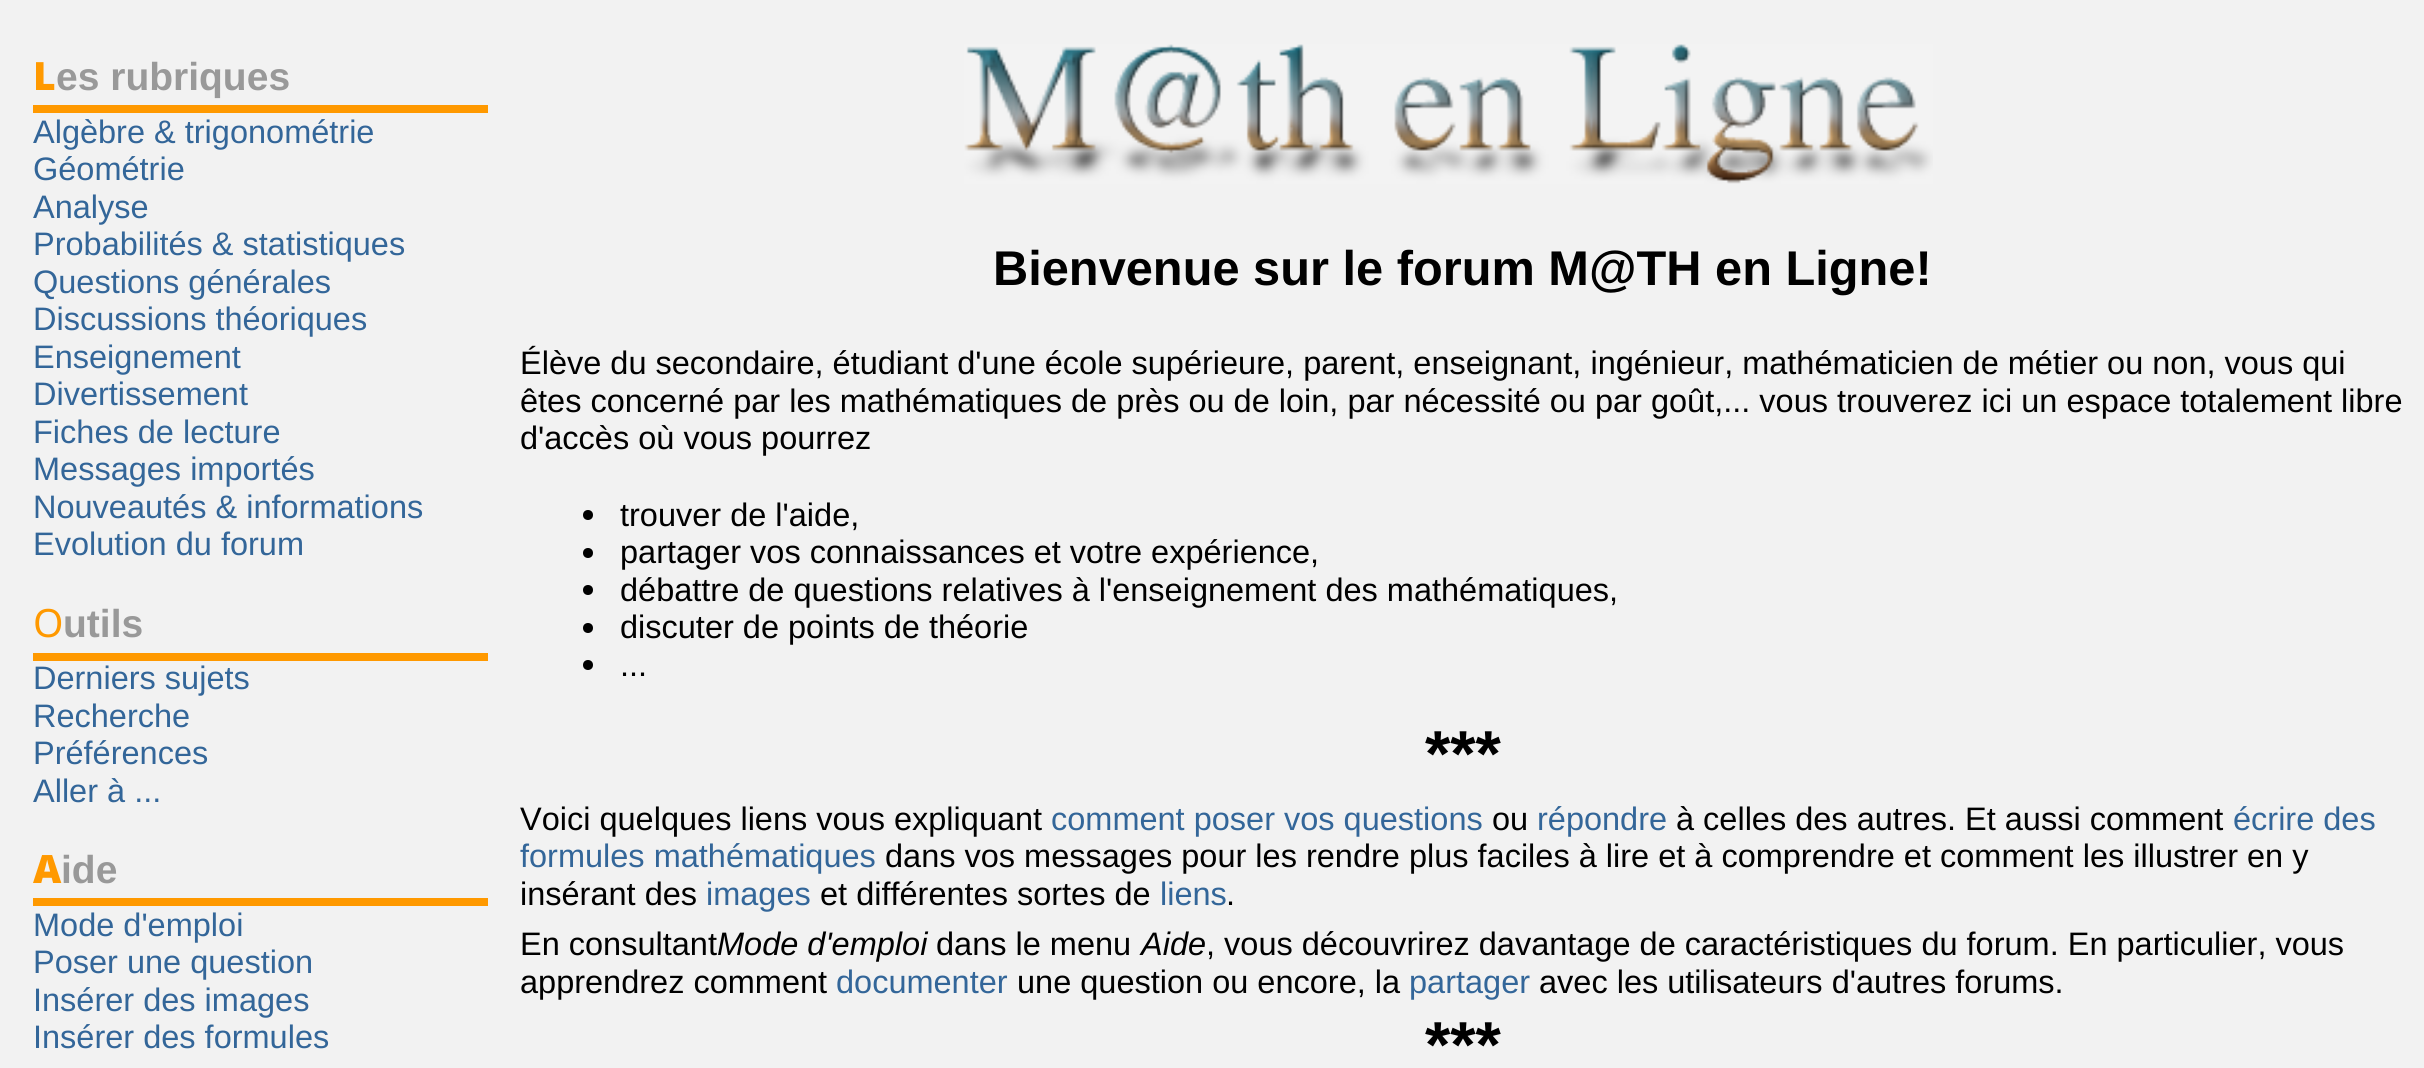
#include <cairo.h>
#include <math.h>
#include <stddef.h>

static cairo_t *ctx;

static void use_color(int r, int g, int b) {
    cairo_set_source_rgb(ctx, r / 255.0, g / 255.0, b / 255.0);
}

static void picture(const char *path, double x, double y, double w, double h) {
    cairo_surface_t *image = cairo_image_surface_create_from_png(path);
    cairo_save(ctx);
    cairo_set_source_surface(ctx, image, x, y);
    cairo_rectangle(ctx, x, y, w, h);
    cairo_fill(ctx);
    cairo_restore(ctx);
    cairo_surface_destroy(image);
}

int main(void) {
    cairo_surface_t *surface = cairo_image_surface_create(CAIRO_FORMAT_RGB24, 2424, 1068);
    ctx = cairo_create(surface);
    cairo_font_options_t *options = cairo_font_options_create();
    cairo_font_options_set_hint_metrics(options, CAIRO_HINT_METRICS_OFF);
    cairo_font_options_set_hint_style(options, CAIRO_HINT_STYLE_NONE);
    cairo_set_font_options(ctx, options);
    cairo_set_miter_limit(ctx, 4);
    use_color(242, 242, 242);
    cairo_paint(ctx);
    use_color(255, 153, 0);
    cairo_rectangle(ctx, 33, 105, 455, 8);
    cairo_fill(ctx);
    cairo_select_font_face(ctx, "Noto Sans Black", CAIRO_FONT_SLANT_NORMAL, CAIRO_FONT_WEIGHT_NORMAL);
    cairo_set_font_size(ctx, 39);
    cairo_move_to(ctx, 33, 90);
    cairo_show_text(ctx, "L");
    cairo_select_font_face(ctx, "Liberation Sans", CAIRO_FONT_SLANT_NORMAL, CAIRO_FONT_WEIGHT_BOLD);
    use_color(153, 153, 153);
    cairo_move_to(ctx, 56, 90);
    cairo_show_text(ctx, "es rubriques");
    cairo_select_font_face(ctx, "Liberation Sans", CAIRO_FONT_SLANT_NORMAL, CAIRO_FONT_WEIGHT_NORMAL);
    cairo_set_font_size(ctx, 32.5);
    use_color(51, 102, 153);
    cairo_move_to(ctx, 33, 143);
    cairo_show_text(ctx, "Algèbre & trigonométrie");
    cairo_move_to(ctx, 33, 180);
    cairo_show_text(ctx, "Géométrie");
    cairo_move_to(ctx, 33, 218);
    cairo_show_text(ctx, "Analyse");
    cairo_move_to(ctx, 33, 255);
    cairo_show_text(ctx, "Probabilités & statistiques");
    cairo_move_to(ctx, 33, 293);
    cairo_show_text(ctx, "Questions générales");
    cairo_move_to(ctx, 33, 330);
    cairo_show_text(ctx, "Discussions théoriques");
    cairo_move_to(ctx, 33, 368);
    cairo_show_text(ctx, "Enseignement");
    cairo_move_to(ctx, 33, 405);
    cairo_show_text(ctx, "Divertissement");
    cairo_move_to(ctx, 33, 443);
    cairo_show_text(ctx, "Fiches de lecture");
    cairo_move_to(ctx, 33, 480);
    cairo_show_text(ctx, "Messages importés");
    cairo_move_to(ctx, 33, 518);
    cairo_show_text(ctx, "Nouveautés & informations");
    cairo_move_to(ctx, 33, 555);
    cairo_show_text(ctx, "Evolution du forum");
    use_color(255, 153, 0);
    cairo_rectangle(ctx, 33, 653, 455, 8);
    cairo_fill(ctx);
    cairo_select_font_face(ctx, "Noto Sans", CAIRO_FONT_SLANT_NORMAL, CAIRO_FONT_WEIGHT_NORMAL);
    cairo_set_font_size(ctx, 39);
    cairo_move_to(ctx, 33, 637);
    cairo_show_text(ctx, "O");
    cairo_select_font_face(ctx, "Liberation Sans", CAIRO_FONT_SLANT_NORMAL, CAIRO_FONT_WEIGHT_BOLD);
    use_color(153, 153, 153);
    cairo_move_to(ctx, 63, 637);
    cairo_show_text(ctx, "utils");
    cairo_select_font_face(ctx, "Liberation Sans", CAIRO_FONT_SLANT_NORMAL, CAIRO_FONT_WEIGHT_NORMAL);
    cairo_set_font_size(ctx, 32.5);
    use_color(51, 102, 153);
    cairo_move_to(ctx, 33, 689);
    cairo_show_text(ctx, "Derniers sujets");
    cairo_move_to(ctx, 33, 727);
    cairo_show_text(ctx, "Recherche");
    cairo_move_to(ctx, 33, 764);
    cairo_show_text(ctx, "Préférences");
    cairo_move_to(ctx, 33, 802);
    cairo_show_text(ctx, "Aller à ...");
    use_color(255, 153, 0);
    cairo_rectangle(ctx, 33, 898, 455, 8);
    cairo_fill(ctx);
    cairo_select_font_face(ctx, "Noto Sans Black", CAIRO_FONT_SLANT_NORMAL, CAIRO_FONT_WEIGHT_NORMAL);
    cairo_set_font_size(ctx, 39);
    cairo_move_to(ctx, 33, 883);
    cairo_show_text(ctx, "A");
    cairo_select_font_face(ctx, "Liberation Sans", CAIRO_FONT_SLANT_NORMAL, CAIRO_FONT_WEIGHT_BOLD);
    use_color(153, 153, 153);
    cairo_move_to(ctx, 61, 883);
    cairo_show_text(ctx, "ide");
    cairo_select_font_face(ctx, "Liberation Sans", CAIRO_FONT_SLANT_NORMAL, CAIRO_FONT_WEIGHT_NORMAL);
    cairo_set_font_size(ctx, 32.5);
    use_color(51, 102, 153);
    cairo_move_to(ctx, 33, 936);
    cairo_show_text(ctx, "Mode d'emploi");
    cairo_move_to(ctx, 33, 973);
    cairo_show_text(ctx, "Poser une question");
    cairo_move_to(ctx, 33, 1011);
    cairo_show_text(ctx, "Insérer des images");
    cairo_move_to(ctx, 33, 1048);
    cairo_show_text(ctx, "Insérer des formules");
    picture("img1.png", 964, 44, 969, 140);
    cairo_select_font_face(ctx, "Liberation Sans", CAIRO_FONT_SLANT_NORMAL, CAIRO_FONT_WEIGHT_BOLD);
    cairo_set_font_size(ctx, 48.75);
    use_color(0, 0, 0);
    cairo_move_to(ctx, 993, 285);
    cairo_show_text(ctx, "Bienvenue sur le forum M@TH en Ligne!");
    cairo_select_font_face(ctx, "Liberation Sans", CAIRO_FONT_SLANT_NORMAL, CAIRO_FONT_WEIGHT_NORMAL);
    cairo_set_font_size(ctx, 32.5);
    cairo_move_to(ctx, 520, 374);
    cairo_show_text(ctx, "Élève du secondaire, étudiant d'une école supérieure, parent, enseignant, ingénieur, mathématicien de métier ou non, vous qui");
    cairo_move_to(ctx, 520, 412);
    cairo_show_text(ctx, "êtes concerné par les mathématiques de près ou de loin, par nécessité ou par goût,... vous trouverez ici un espace totalement libre");
    cairo_move_to(ctx, 520, 449);
    cairo_show_text(ctx, "d'accès où vous pourrez");
    cairo_new_path(ctx);
    cairo_arc(ctx, 588, 515, 5, 0, 2 * M_PI);
    cairo_fill(ctx);
    cairo_move_to(ctx, 620, 526);
    cairo_show_text(ctx, "trouver de l'aide,");
    cairo_new_path(ctx);
    cairo_arc(ctx, 588, 553, 5, 0, 2 * M_PI);
    cairo_fill(ctx);
    cairo_move_to(ctx, 620, 563);
    cairo_show_text(ctx, "partager vos connaissances et votre expérience,");
    cairo_new_path(ctx);
    cairo_arc(ctx, 588, 590, 5, 0, 2 * M_PI);
    cairo_fill(ctx);
    cairo_move_to(ctx, 620, 601);
    cairo_show_text(ctx, "débattre de questions relatives à l'enseignement des mathématiques,");
    cairo_new_path(ctx);
    cairo_arc(ctx, 588, 628, 5, 0, 2 * M_PI);
    cairo_fill(ctx);
    cairo_move_to(ctx, 620, 638);
    cairo_show_text(ctx, "discuter de points de théorie");
    cairo_new_path(ctx);
    cairo_arc(ctx, 588, 665, 5, 0, 2 * M_PI);
    cairo_fill(ctx);
    cairo_move_to(ctx, 620, 676);
    cairo_show_text(ctx, "...");
    cairo_select_font_face(ctx, "Liberation Sans", CAIRO_FONT_SLANT_NORMAL, CAIRO_FONT_WEIGHT_BOLD);
    cairo_set_font_size(ctx, 65);
    cairo_move_to(ctx, 1425, 776);
    cairo_show_text(ctx, "***");
    cairo_select_font_face(ctx, "Liberation Sans", CAIRO_FONT_SLANT_NORMAL, CAIRO_FONT_WEIGHT_NORMAL);
    cairo_set_font_size(ctx, 32.5);
    cairo_move_to(ctx, 520, 830);
    cairo_show_text(ctx, "Voici quelques liens vous expliquant");
    use_color(51, 102, 153);
    cairo_move_to(ctx, 1051, 830);
    cairo_show_text(ctx, "comment poser vos questions");
    use_color(0, 0, 0);
    cairo_move_to(ctx, 1492, 830);
    cairo_show_text(ctx, "ou");
    use_color(51, 102, 153);
    cairo_move_to(ctx, 1537, 830);
    cairo_show_text(ctx, "répondre");
    use_color(0, 0, 0);
    cairo_move_to(ctx, 1676, 830);
    cairo_show_text(ctx, "à celles des autres. Et aussi comment");
    use_color(51, 102, 153);
    cairo_move_to(ctx, 2233, 830);
    cairo_show_text(ctx, "écrire des");
    cairo_move_to(ctx, 520, 867);
    cairo_show_text(ctx, "formules mathématiques");
    use_color(0, 0, 0);
    cairo_move_to(ctx, 885, 867);
    cairo_show_text(ctx, "dans vos messages pour les rendre plus faciles à lire et à comprendre et comment les illustrer en y");
    cairo_move_to(ctx, 520, 905);
    cairo_show_text(ctx, "insérant des");
    use_color(51, 102, 153);
    cairo_move_to(ctx, 706, 905);
    cairo_show_text(ctx, "images");
    use_color(0, 0, 0);
    cairo_move_to(ctx, 820, 905);
    cairo_show_text(ctx, "et différentes sortes de");
    use_color(51, 102, 153);
    cairo_move_to(ctx, 1160, 905);
    cairo_show_text(ctx, "liens");
    use_color(0, 0, 0);
    cairo_move_to(ctx, 1226, 905);
    cairo_show_text(ctx, ".");
    cairo_move_to(ctx, 520, 955);
    cairo_show_text(ctx, "En consultant");
    cairo_select_font_face(ctx, "Liberation Sans", CAIRO_FONT_SLANT_ITALIC, CAIRO_FONT_WEIGHT_NORMAL);
    cairo_move_to(ctx, 717, 955);
    cairo_show_text(ctx, "Mode d'emploi");
    cairo_select_font_face(ctx, "Liberation Sans", CAIRO_FONT_SLANT_NORMAL, CAIRO_FONT_WEIGHT_NORMAL);
    cairo_move_to(ctx, 936, 955);
    cairo_show_text(ctx, "dans le menu");
    cairo_select_font_face(ctx, "Liberation Sans", CAIRO_FONT_SLANT_ITALIC, CAIRO_FONT_WEIGHT_NORMAL);
    cairo_move_to(ctx, 1141, 955);
    cairo_show_text(ctx, "Aide");
    cairo_select_font_face(ctx, "Liberation Sans", CAIRO_FONT_SLANT_NORMAL, CAIRO_FONT_WEIGHT_NORMAL);
    cairo_move_to(ctx, 1206, 955);
    cairo_show_text(ctx, ", vous découvrirez davantage de caractéristiques du forum. En particulier, vous");
    cairo_move_to(ctx, 520, 993);
    cairo_show_text(ctx, "apprendrez comment");
    use_color(51, 102, 153);
    cairo_move_to(ctx, 836, 993);
    cairo_show_text(ctx, "documenter");
    use_color(0, 0, 0);
    cairo_move_to(ctx, 1017, 993);
    cairo_show_text(ctx, "une question ou encore, la");
    use_color(51, 102, 153);
    cairo_move_to(ctx, 1409, 993);
    cairo_show_text(ctx, "partager");
    use_color(0, 0, 0);
    cairo_move_to(ctx, 1539, 993);
    cairo_show_text(ctx, "avec les utilisateurs d'autres forums.");
    cairo_select_font_face(ctx, "Liberation Sans", CAIRO_FONT_SLANT_NORMAL, CAIRO_FONT_WEIGHT_BOLD);
    cairo_set_font_size(ctx, 65);
    cairo_move_to(ctx, 1425, 1067);
    cairo_show_text(ctx, "***");
    cairo_surface_write_to_png(surface, "result.png");
    cairo_font_options_destroy(options);
    cairo_destroy(ctx);
    cairo_surface_destroy(surface);
    return 0;
}
